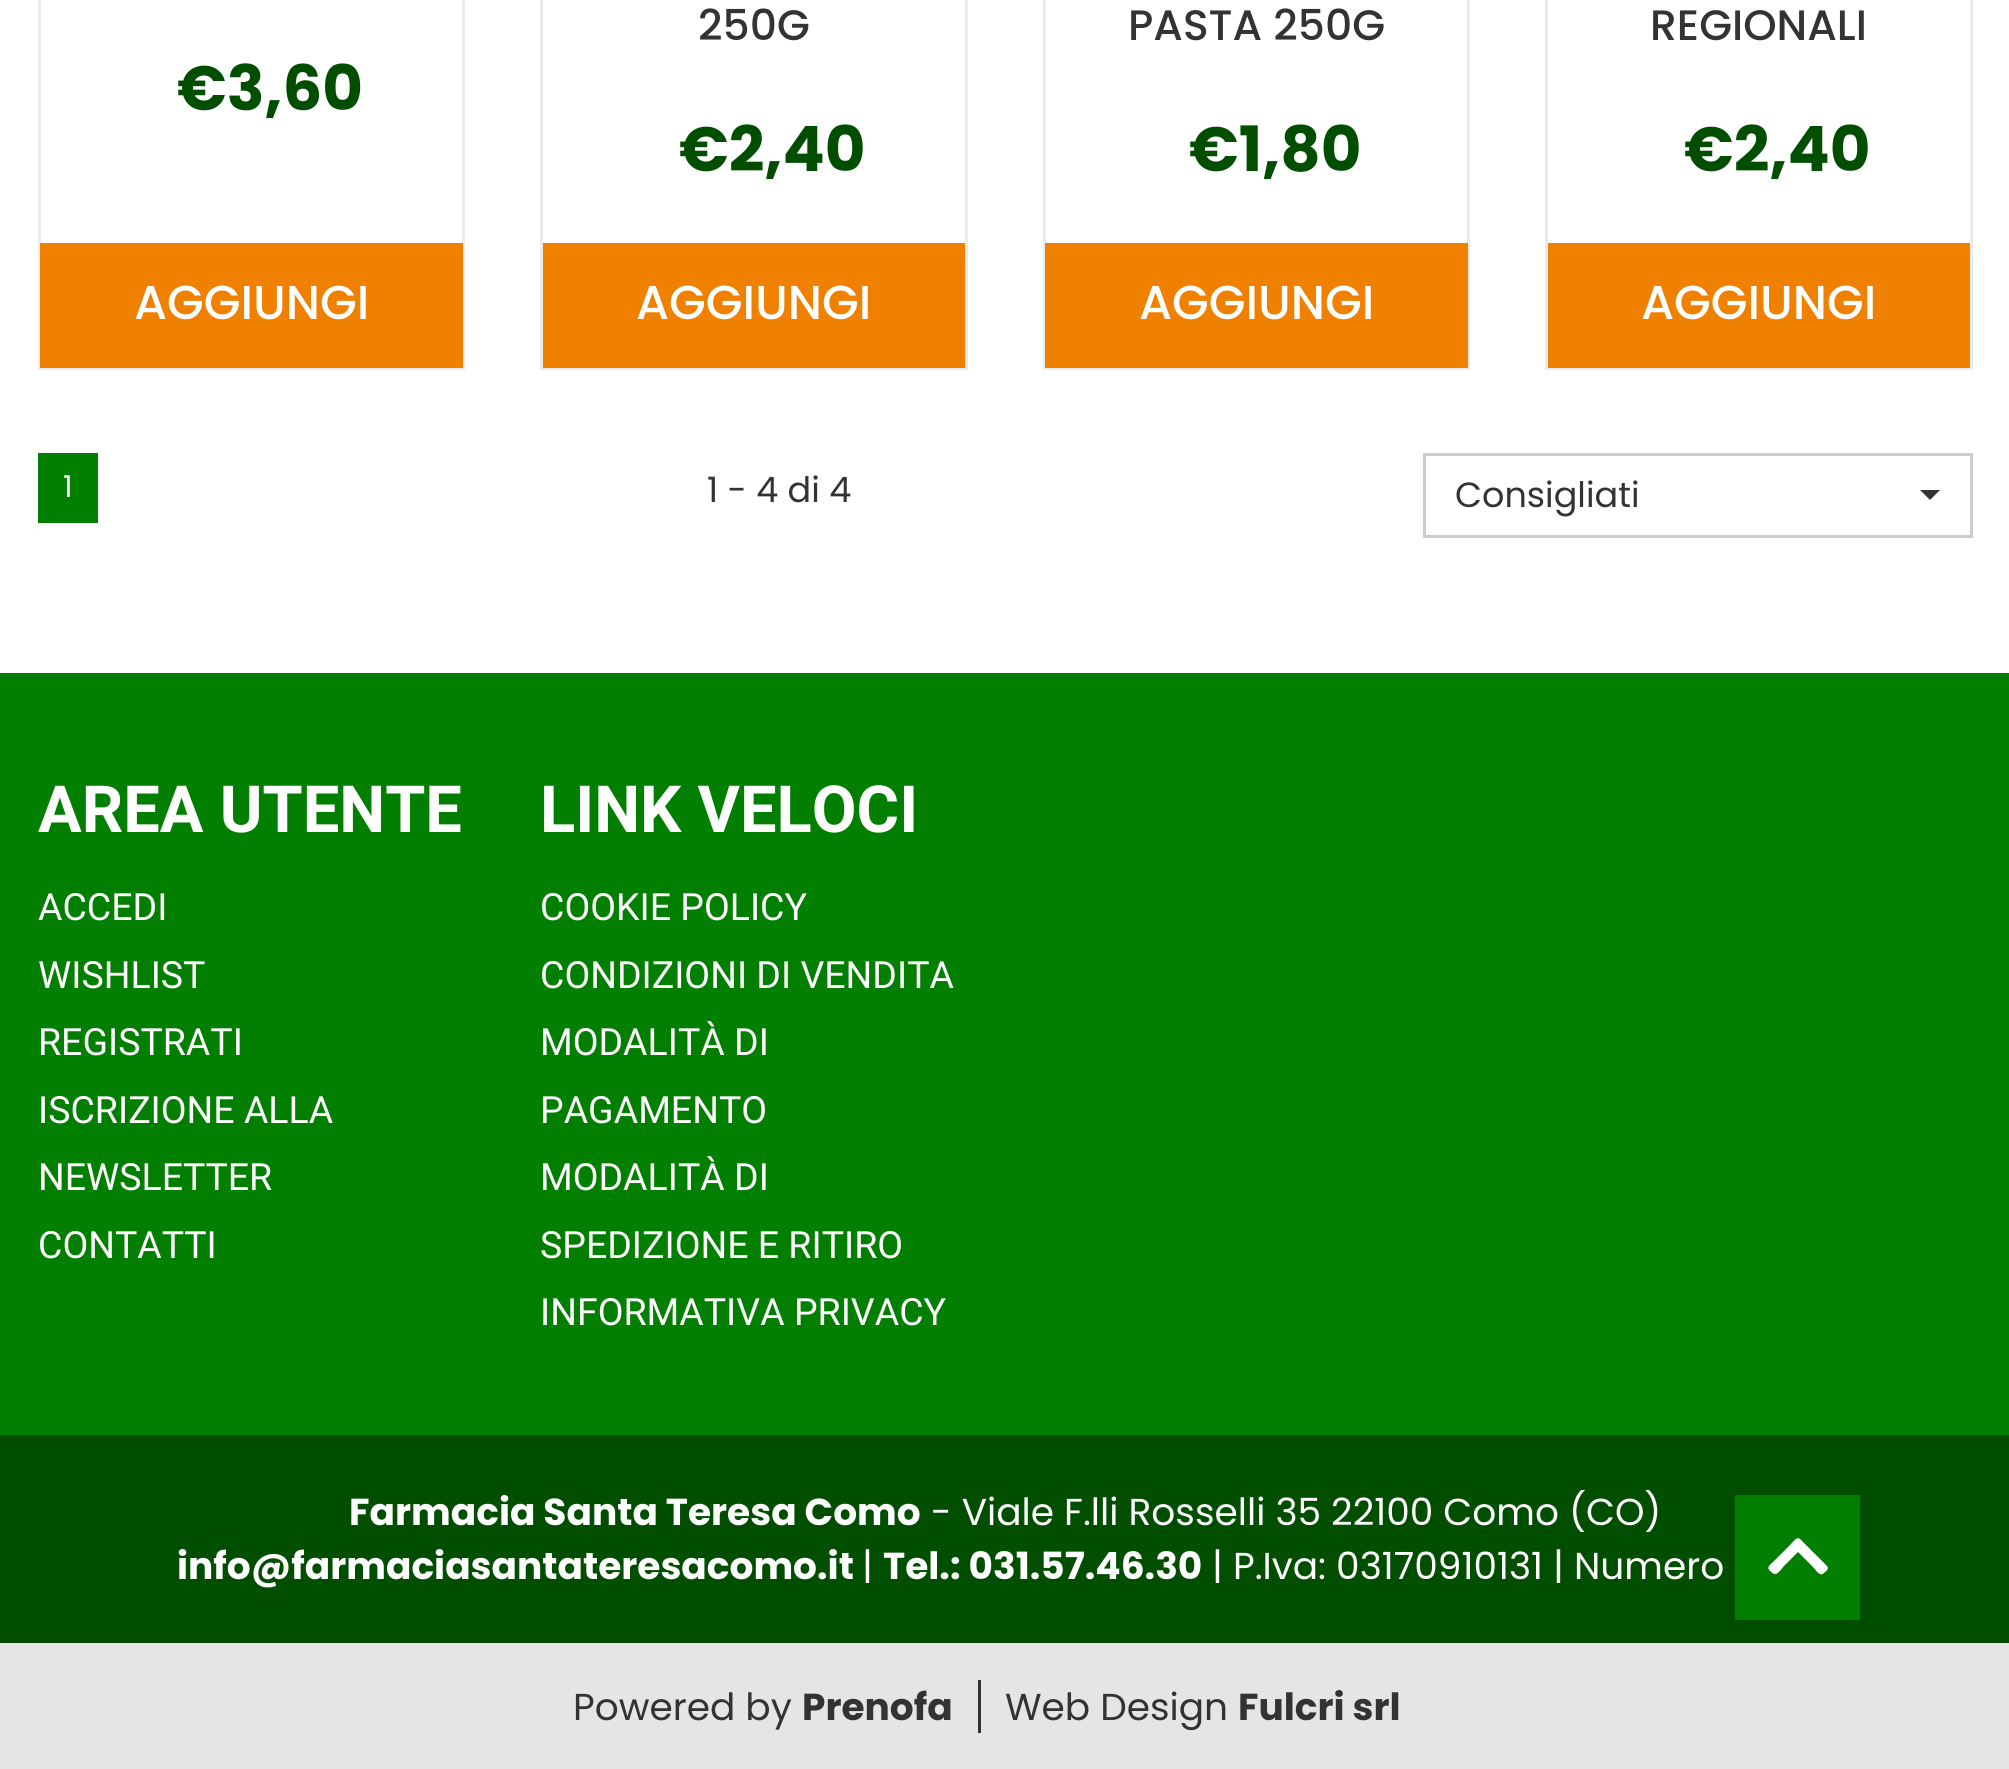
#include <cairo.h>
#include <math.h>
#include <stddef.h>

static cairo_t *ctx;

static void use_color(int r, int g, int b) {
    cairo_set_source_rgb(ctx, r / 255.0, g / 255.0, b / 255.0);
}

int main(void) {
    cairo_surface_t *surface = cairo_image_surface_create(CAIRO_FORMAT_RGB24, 2009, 1769);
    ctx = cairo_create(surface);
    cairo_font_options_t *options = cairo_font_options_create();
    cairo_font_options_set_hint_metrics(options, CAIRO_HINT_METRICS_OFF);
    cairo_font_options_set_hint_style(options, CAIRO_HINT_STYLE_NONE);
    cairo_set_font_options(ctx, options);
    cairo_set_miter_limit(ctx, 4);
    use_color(255, 255, 255);
    cairo_paint(ctx);
    cairo_rectangle(ctx, 39.5, -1.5, 424, 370);
    use_color(235, 235, 235);
    cairo_set_line_width(ctx, 3);
    cairo_stroke(ctx);
    cairo_select_font_face(ctx, "Poppins", CAIRO_FONT_SLANT_NORMAL, CAIRO_FONT_WEIGHT_BOLD);
    cairo_set_font_size(ctx, 62.5);
    use_color(1, 78, 0);
    cairo_move_to(ctx, 177, 110);
    cairo_show_text(ctx, "€3,60");
    use_color(240, 129, 0);
    cairo_rectangle(ctx, 40, 243, 423, 125);
    cairo_fill(ctx);
    cairo_select_font_face(ctx, "Poppins Medium", CAIRO_FONT_SLANT_NORMAL, CAIRO_FONT_WEIGHT_NORMAL);
    cairo_set_font_size(ctx, 47.5);
    use_color(255, 255, 255);
    cairo_move_to(ctx, 134, 319);
    cairo_show_text(ctx, "AGGIUNGI");
    cairo_rectangle(ctx, 541.5, -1.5, 425, 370);
    use_color(235, 235, 235);
    cairo_stroke(ctx);
    cairo_set_font_size(ctx, 42.5);
    use_color(51, 51, 51);
    cairo_move_to(ctx, 698, 40);
    cairo_show_text(ctx, "250G");
    cairo_select_font_face(ctx, "Poppins", CAIRO_FONT_SLANT_NORMAL, CAIRO_FONT_WEIGHT_BOLD);
    cairo_set_font_size(ctx, 62.5);
    use_color(1, 78, 0);
    cairo_move_to(ctx, 679, 171);
    cairo_show_text(ctx, "€2,40");
    use_color(240, 129, 0);
    cairo_rectangle(ctx, 543, 243, 422, 125);
    cairo_fill(ctx);
    cairo_select_font_face(ctx, "Poppins Medium", CAIRO_FONT_SLANT_NORMAL, CAIRO_FONT_WEIGHT_NORMAL);
    cairo_set_font_size(ctx, 47.5);
    use_color(255, 255, 255);
    cairo_move_to(ctx, 636, 319);
    cairo_show_text(ctx, "AGGIUNGI");
    cairo_rectangle(ctx, 1044.5, -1.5, 424, 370);
    use_color(235, 235, 235);
    cairo_stroke(ctx);
    cairo_set_font_size(ctx, 42.5);
    use_color(51, 51, 51);
    cairo_move_to(ctx, 1128, 40);
    cairo_show_text(ctx, "PASTA 250G");
    cairo_select_font_face(ctx, "Poppins", CAIRO_FONT_SLANT_NORMAL, CAIRO_FONT_WEIGHT_BOLD);
    cairo_set_font_size(ctx, 62.5);
    use_color(1, 78, 0);
    cairo_move_to(ctx, 1189, 171);
    cairo_show_text(ctx, "€1,80");
    use_color(240, 129, 0);
    cairo_rectangle(ctx, 1045, 243, 423, 125);
    cairo_fill(ctx);
    cairo_select_font_face(ctx, "Poppins Medium", CAIRO_FONT_SLANT_NORMAL, CAIRO_FONT_WEIGHT_NORMAL);
    cairo_set_font_size(ctx, 47.5);
    use_color(255, 255, 255);
    cairo_move_to(ctx, 1139, 319);
    cairo_show_text(ctx, "AGGIUNGI");
    cairo_rectangle(ctx, 1546.5, -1.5, 425, 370);
    use_color(235, 235, 235);
    cairo_stroke(ctx);
    cairo_set_font_size(ctx, 42.5);
    use_color(51, 51, 51);
    cairo_move_to(ctx, 1650, 40);
    cairo_show_text(ctx, "REGIONALI");
    cairo_select_font_face(ctx, "Poppins", CAIRO_FONT_SLANT_NORMAL, CAIRO_FONT_WEIGHT_BOLD);
    cairo_set_font_size(ctx, 62.5);
    use_color(1, 78, 0);
    cairo_move_to(ctx, 1684, 171);
    cairo_show_text(ctx, "€2,40");
    use_color(240, 129, 0);
    cairo_rectangle(ctx, 1548, 243, 422, 125);
    cairo_fill(ctx);
    cairo_select_font_face(ctx, "Poppins Medium", CAIRO_FONT_SLANT_NORMAL, CAIRO_FONT_WEIGHT_NORMAL);
    cairo_set_font_size(ctx, 47.5);
    use_color(255, 255, 255);
    cairo_move_to(ctx, 1641, 319);
    cairo_show_text(ctx, "AGGIUNGI");
    use_color(2, 127, 0);
    cairo_rectangle(ctx, 38, 453, 60, 70);
    cairo_fill(ctx);
    cairo_select_font_face(ctx, "Poppins", CAIRO_FONT_SLANT_NORMAL, CAIRO_FONT_WEIGHT_NORMAL);
    cairo_set_font_size(ctx, 30);
    use_color(255, 255, 255);
    cairo_move_to(ctx, 63, 497);
    cairo_show_text(ctx, "1");
    cairo_set_font_size(ctx, 35);
    use_color(51, 51, 51);
    cairo_move_to(ctx, 707, 502);
    cairo_show_text(ctx, "1 - 4 di 4");
    cairo_rectangle(ctx, 1424.5, 454.5, 547, 82);
    use_color(204, 204, 204);
    cairo_stroke(ctx);
    use_color(51, 51, 51);
    cairo_move_to(ctx, 1455, 507);
    cairo_show_text(ctx, "Consigliati");
    cairo_new_path(ctx);
    cairo_move_to(ctx, 1920, 490);
    cairo_line_to(ctx, 1940, 490);
    cairo_line_to(ctx, 1930, 500);
    cairo_close_path(ctx);
    cairo_fill(ctx);
    use_color(2, 127, 0);
    cairo_rectangle(ctx, 0, 673, 2009, 762);
    cairo_fill(ctx);
    cairo_select_font_face(ctx, "Roboto", CAIRO_FONT_SLANT_NORMAL, CAIRO_FONT_WEIGHT_BOLD);
    cairo_set_font_size(ctx, 65);
    use_color(255, 255, 255);
    cairo_move_to(ctx, 38, 832);
    cairo_show_text(ctx, "AREA UTENTE");
    cairo_select_font_face(ctx, "Roboto", CAIRO_FONT_SLANT_NORMAL, CAIRO_FONT_WEIGHT_NORMAL);
    cairo_set_font_size(ctx, 37.5);
    cairo_move_to(ctx, 38, 920);
    cairo_show_text(ctx, "ACCEDI");
    cairo_move_to(ctx, 38, 988);
    cairo_show_text(ctx, "WISHLIST");
    cairo_move_to(ctx, 38, 1055);
    cairo_show_text(ctx, "REGISTRATI");
    cairo_move_to(ctx, 38, 1123);
    cairo_show_text(ctx, "ISCRIZIONE ALLA");
    cairo_move_to(ctx, 38, 1190);
    cairo_show_text(ctx, "NEWSLETTER");
    cairo_move_to(ctx, 38, 1258);
    cairo_show_text(ctx, "CONTATTI");
    cairo_select_font_face(ctx, "Roboto", CAIRO_FONT_SLANT_NORMAL, CAIRO_FONT_WEIGHT_BOLD);
    cairo_set_font_size(ctx, 65);
    cairo_move_to(ctx, 540, 832);
    cairo_show_text(ctx, "LINK VELOCI");
    cairo_select_font_face(ctx, "Roboto", CAIRO_FONT_SLANT_NORMAL, CAIRO_FONT_WEIGHT_NORMAL);
    cairo_set_font_size(ctx, 37.5);
    cairo_move_to(ctx, 540, 920);
    cairo_show_text(ctx, "COOKIE POLICY");
    cairo_move_to(ctx, 540, 988);
    cairo_show_text(ctx, "CONDIZIONI DI VENDITA");
    cairo_move_to(ctx, 540, 1055);
    cairo_show_text(ctx, "MODALITÀ DI");
    cairo_move_to(ctx, 540, 1123);
    cairo_show_text(ctx, "PAGAMENTO");
    cairo_move_to(ctx, 540, 1190);
    cairo_show_text(ctx, "MODALITÀ DI");
    cairo_move_to(ctx, 540, 1258);
    cairo_show_text(ctx, "SPEDIZIONE E RITIRO");
    cairo_move_to(ctx, 540, 1325);
    cairo_show_text(ctx, "INFORMATIVA PRIVACY");
    use_color(1, 78, 0);
    cairo_rectangle(ctx, 0, 1435, 2009, 208);
    cairo_fill(ctx);
    cairo_select_font_face(ctx, "Poppins", CAIRO_FONT_SLANT_NORMAL, CAIRO_FONT_WEIGHT_BOLD);
    use_color(255, 255, 255);
    cairo_move_to(ctx, 349, 1525);
    cairo_show_text(ctx, "Farmacia Santa Teresa Como");
    cairo_select_font_face(ctx, "Poppins", CAIRO_FONT_SLANT_NORMAL, CAIRO_FONT_WEIGHT_NORMAL);
    cairo_move_to(ctx, 931, 1525);
    cairo_show_text(ctx, "- Viale F.lli Rosselli 35 22100 Como (CO)");
    cairo_select_font_face(ctx, "Poppins", CAIRO_FONT_SLANT_NORMAL, CAIRO_FONT_WEIGHT_BOLD);
    cairo_move_to(ctx, 177, 1579);
    cairo_show_text(ctx, "info@farmaciasantateresacomo.it");
    cairo_select_font_face(ctx, "Poppins", CAIRO_FONT_SLANT_NORMAL, CAIRO_FONT_WEIGHT_NORMAL);
    cairo_move_to(ctx, 862, 1579);
    cairo_show_text(ctx, "|");
    cairo_select_font_face(ctx, "Poppins", CAIRO_FONT_SLANT_NORMAL, CAIRO_FONT_WEIGHT_BOLD);
    cairo_move_to(ctx, 883, 1579);
    cairo_show_text(ctx, "Tel.: 031.57.46.30");
    cairo_select_font_face(ctx, "Poppins", CAIRO_FONT_SLANT_NORMAL, CAIRO_FONT_WEIGHT_NORMAL);
    cairo_move_to(ctx, 1212, 1579);
    cairo_show_text(ctx, "| P.Iva: 03170910131 | Numero");
    use_color(229, 229, 229);
    cairo_rectangle(ctx, 0, 1643, 2009, 126);
    cairo_fill(ctx);
    use_color(51, 51, 51);
    cairo_rectangle(ctx, 978, 1680, 3, 53);
    cairo_fill(ctx);
    cairo_move_to(ctx, 573, 1720);
    cairo_show_text(ctx, "Powered by");
    cairo_select_font_face(ctx, "Poppins", CAIRO_FONT_SLANT_NORMAL, CAIRO_FONT_WEIGHT_BOLD);
    cairo_move_to(ctx, 802, 1720);
    cairo_show_text(ctx, "Prenofa");
    cairo_select_font_face(ctx, "Poppins", CAIRO_FONT_SLANT_NORMAL, CAIRO_FONT_WEIGHT_NORMAL);
    cairo_move_to(ctx, 1005, 1720);
    cairo_show_text(ctx, "Web Design");
    cairo_select_font_face(ctx, "Poppins", CAIRO_FONT_SLANT_NORMAL, CAIRO_FONT_WEIGHT_BOLD);
    cairo_move_to(ctx, 1238, 1720);
    cairo_show_text(ctx, "Fulcri srl");
    use_color(2, 127, 0);
    cairo_rectangle(ctx, 1735, 1495, 125, 125);
    cairo_fill(ctx);
    use_color(255, 255, 255);
    cairo_new_path(ctx);
    cairo_move_to(ctx, 1800, 1539);
    cairo_line_to(ctx, 1827, 1566);
    cairo_curve_to(ctx, 1829, 1568, 1827, 1571, 1825, 1572);
    cairo_curve_to(ctx, 1820, 1578, 1817, 1571, 1812, 1566);
    cairo_line_to(ctx, 1798, 1552);
    cairo_line_to(ctx, 1784, 1566);
    cairo_curve_to(ctx, 1782, 1568, 1778, 1575, 1774, 1574);
    cairo_line_to(ctx, 1770, 1571);
    cairo_curve_to(ctx, 1766, 1567, 1770, 1565, 1774, 1561);
    cairo_line_to(ctx, 1791, 1544);
    cairo_curve_to(ctx, 1793, 1542, 1797, 1536, 1800, 1539);
    cairo_close_path(ctx);
    cairo_fill(ctx);
    cairo_surface_write_to_png(surface, "result.png");
    cairo_font_options_destroy(options);
    cairo_destroy(ctx);
    cairo_surface_destroy(surface);
    return 0;
}
